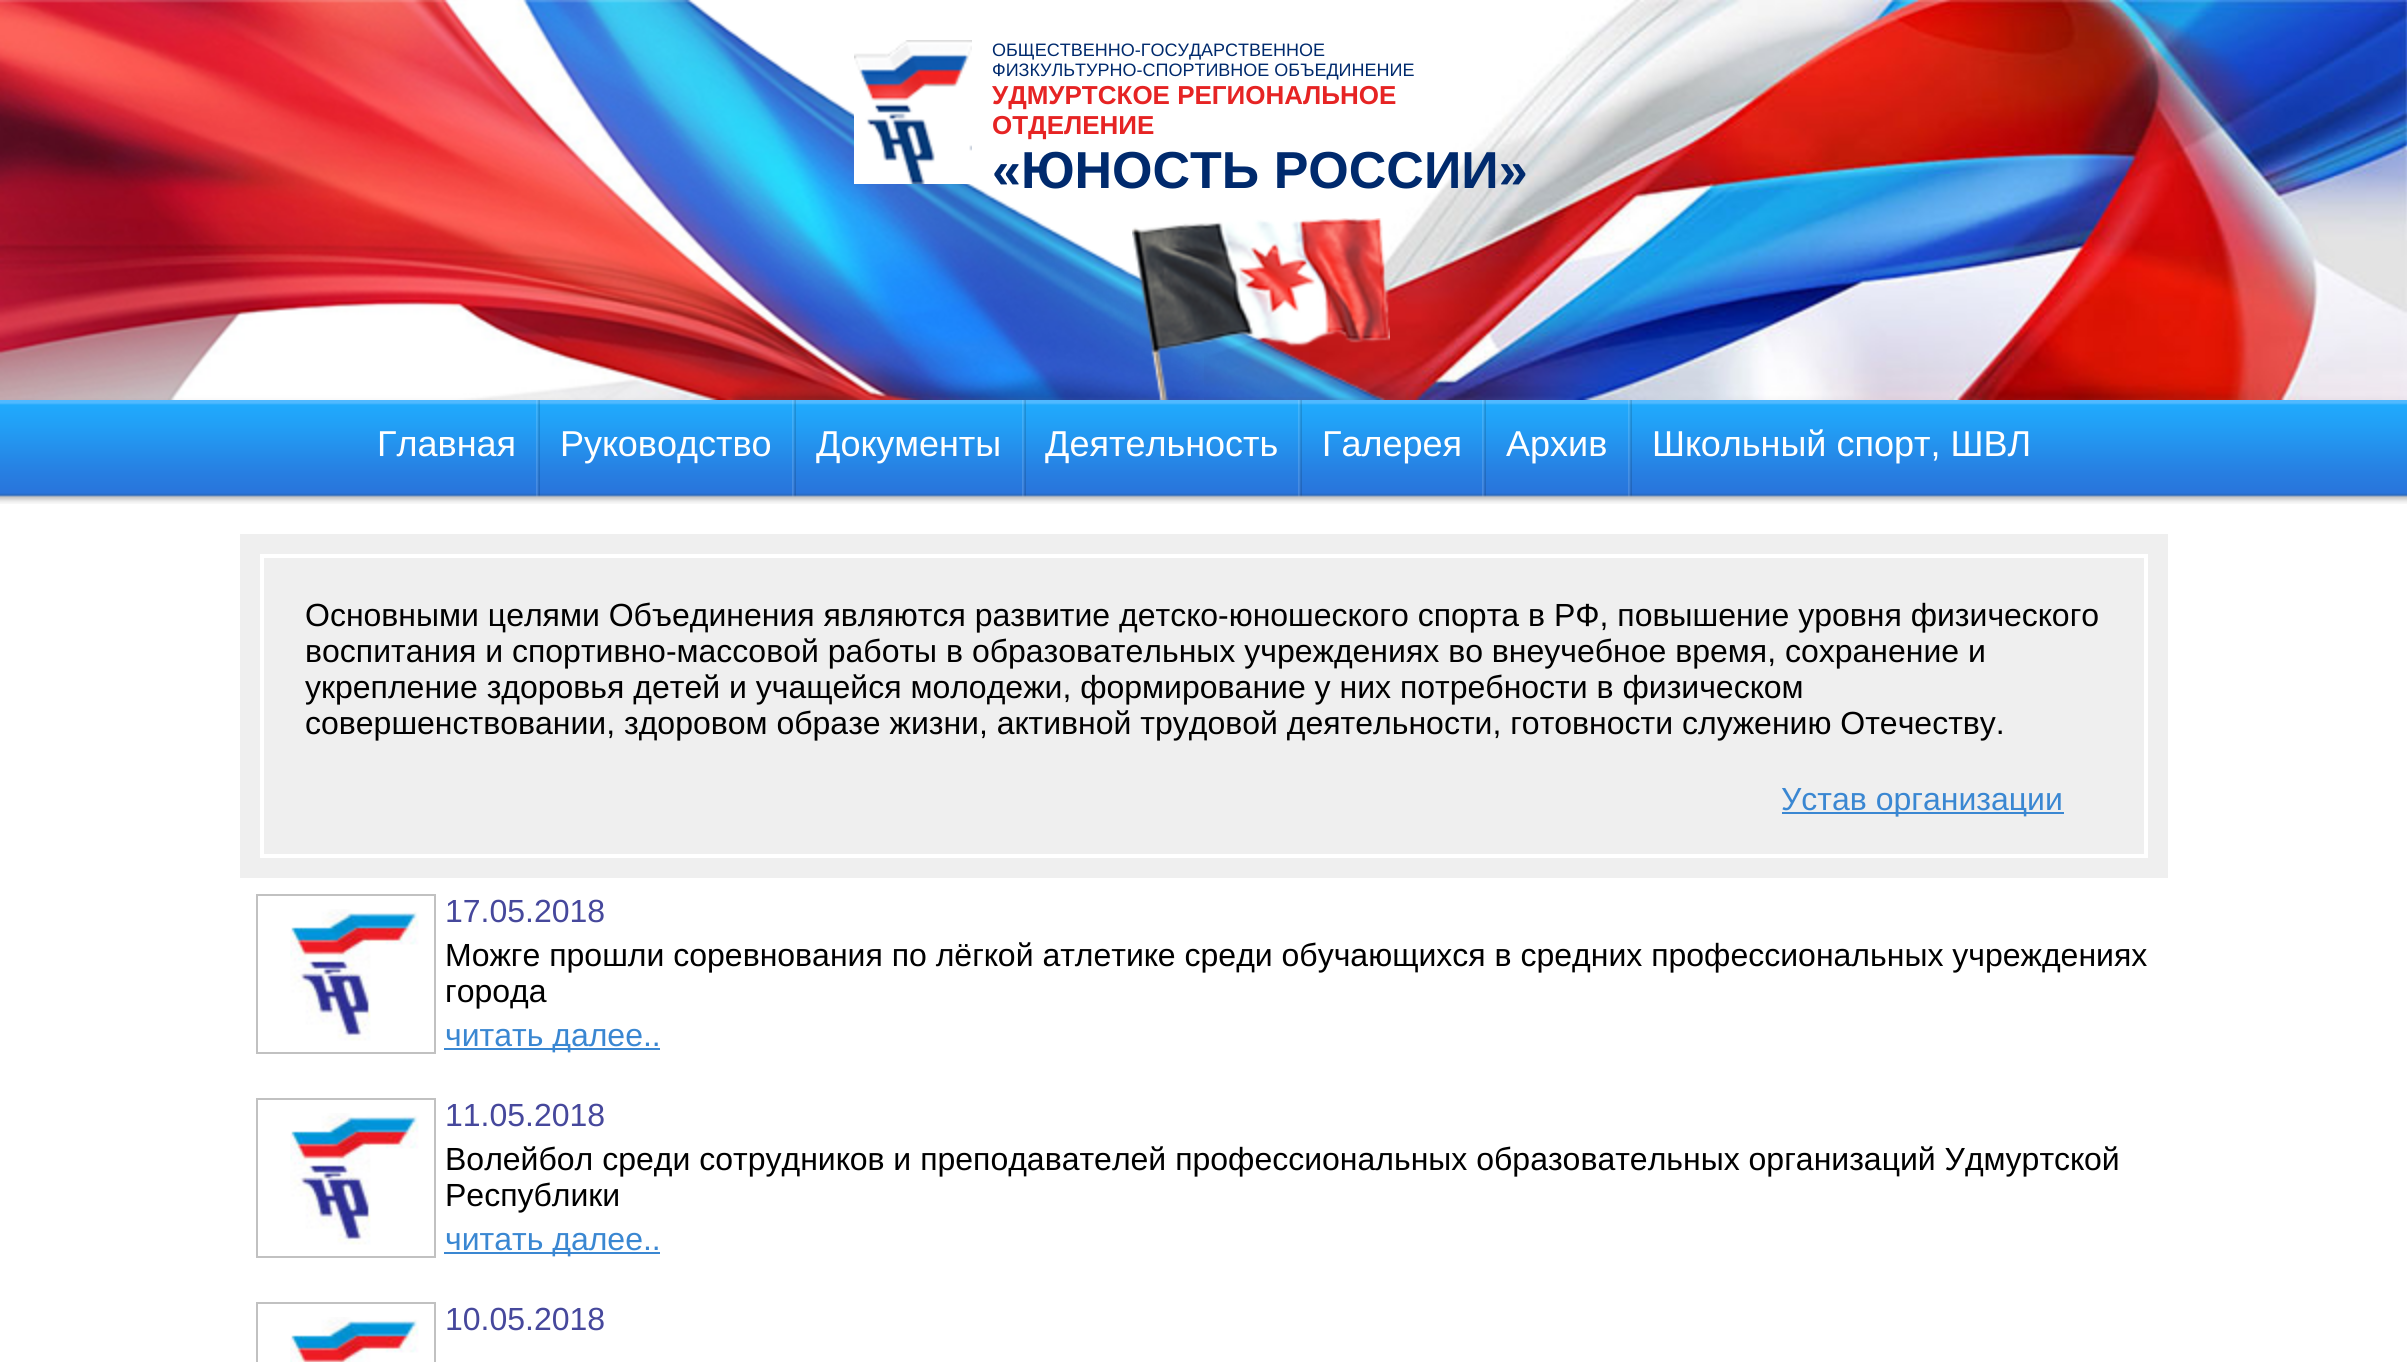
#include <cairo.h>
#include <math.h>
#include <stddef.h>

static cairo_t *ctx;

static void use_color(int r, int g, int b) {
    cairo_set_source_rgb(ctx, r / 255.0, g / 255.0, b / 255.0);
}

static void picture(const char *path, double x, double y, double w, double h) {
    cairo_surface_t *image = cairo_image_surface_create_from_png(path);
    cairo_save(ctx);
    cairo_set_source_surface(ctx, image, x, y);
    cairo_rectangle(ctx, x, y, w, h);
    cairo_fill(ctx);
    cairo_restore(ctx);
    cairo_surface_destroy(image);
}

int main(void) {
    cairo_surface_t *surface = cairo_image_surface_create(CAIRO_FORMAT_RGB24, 2407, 1362);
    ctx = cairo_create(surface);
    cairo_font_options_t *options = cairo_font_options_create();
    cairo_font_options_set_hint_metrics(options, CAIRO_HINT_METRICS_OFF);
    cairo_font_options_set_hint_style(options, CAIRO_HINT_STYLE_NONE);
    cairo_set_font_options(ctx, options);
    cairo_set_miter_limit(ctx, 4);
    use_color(255, 255, 255);
    cairo_paint(ctx);
    picture("img2.png", 1204, 0, 1203, 400);
    picture("img1.png", 0, 0, 1386, 400);
    picture("img3.png", 854, 40, 118, 144);
    cairo_select_font_face(ctx, "Liberation Sans", CAIRO_FONT_SLANT_NORMAL, CAIRO_FONT_WEIGHT_NORMAL);
    cairo_set_font_size(ctx, 18);
    use_color(0, 42, 109);
    cairo_move_to(ctx, 992, 56);
    cairo_show_text(ctx, "ОБЩЕСТВЕННО-ГОСУДАРСТВЕННОЕ");
    cairo_move_to(ctx, 992, 76);
    cairo_show_text(ctx, "ФИЗКУЛЬТУРНО-СПОРТИВНОЕ ОБЪЕДИНЕНИЕ");
    cairo_select_font_face(ctx, "Liberation Sans", CAIRO_FONT_SLANT_NORMAL, CAIRO_FONT_WEIGHT_BOLD);
    cairo_set_font_size(ctx, 26);
    use_color(230, 36, 36);
    cairo_move_to(ctx, 992, 104);
    cairo_show_text(ctx, "УДМУРТСКОЕ РЕГИОНАЛЬНОЕ");
    cairo_move_to(ctx, 992, 134);
    cairo_show_text(ctx, "ОТДЕЛЕНИЕ");
    cairo_set_font_size(ctx, 52);
    use_color(0, 42, 109);
    cairo_move_to(ctx, 992, 188);
    cairo_show_text(ctx, "«ЮНОСТЬ РОССИИ»");
    picture("img4.png", 1132, 218, 258, 182);
    picture("img5.png", 0, 400, 2407, 104);
    cairo_select_font_face(ctx, "Liberation Sans", CAIRO_FONT_SLANT_NORMAL, CAIRO_FONT_WEIGHT_NORMAL);
    cairo_set_font_size(ctx, 36);
    use_color(255, 255, 255);
    cairo_move_to(ctx, 377, 456);
    cairo_show_text(ctx, "Главная");
    picture("img6.png", 536, 400, 4, 97);
    cairo_move_to(ctx, 560, 456);
    cairo_show_text(ctx, "Руководство");
    picture("img6.png", 792, 400, 4, 97);
    cairo_move_to(ctx, 816, 456);
    cairo_show_text(ctx, "Документы");
    picture("img6.png", 1022, 400, 4, 97);
    cairo_move_to(ctx, 1045, 456);
    cairo_show_text(ctx, "Деятельность");
    picture("img6.png", 1298, 400, 4, 97);
    cairo_move_to(ctx, 1322, 456);
    cairo_show_text(ctx, "Галерея");
    picture("img6.png", 1482, 400, 4, 97);
    cairo_move_to(ctx, 1506, 456);
    cairo_show_text(ctx, "Архив");
    picture("img6.png", 1628, 400, 4, 97);
    cairo_move_to(ctx, 1652, 456);
    cairo_show_text(ctx, "Школьный спорт, ШВЛ");
    use_color(239, 239, 239);
    cairo_rectangle(ctx, 240, 534, 1928, 344);
    cairo_fill(ctx);
    cairo_rectangle(ctx, 262, 556, 1884, 300);
    use_color(255, 255, 255);
    cairo_set_line_width(ctx, 4);
    cairo_stroke(ctx);
    cairo_set_font_size(ctx, 32);
    use_color(0, 0, 0);
    cairo_move_to(ctx, 305, 626);
    cairo_show_text(ctx, "Основными целями Объединения являются развитие детско-юношеского спорта в РФ, повышение уровня физического");
    cairo_move_to(ctx, 305, 662);
    cairo_show_text(ctx, "воспитания и спортивно-массовой работы в образовательных учреждениях во внеучебное время, сохранение и");
    cairo_move_to(ctx, 305, 698);
    cairo_show_text(ctx, "укрепление здоровья детей и учащейся молодежи, формирование у них потребности в физическом");
    cairo_move_to(ctx, 305, 734);
    cairo_show_text(ctx, "совершенствовании, здоровом образе жизни, активной трудовой деятельности, готовности служению Отечеству.");
    use_color(58, 135, 210);
    cairo_rectangle(ctx, 1782, 812, 282, 2);
    cairo_fill(ctx);
    cairo_move_to(ctx, 1781, 810);
    cairo_show_text(ctx, "Устав организации");
    picture("img7.png", 290, 909, 129, 132);
    cairo_rectangle(ctx, 257, 895, 178, 158);
    use_color(193, 193, 193);
    cairo_set_line_width(ctx, 2);
    cairo_stroke(ctx);
    use_color(70, 72, 156);
    cairo_move_to(ctx, 445, 922);
    cairo_show_text(ctx, "17.05.2018");
    use_color(0, 0, 0);
    cairo_move_to(ctx, 445, 966);
    cairo_show_text(ctx, "Можге прошли соревнования по лёгкой атлетике среди обучающихся в средних профессиональных учреждениях");
    cairo_move_to(ctx, 445, 1002);
    cairo_show_text(ctx, "города");
    use_color(58, 135, 210);
    cairo_rectangle(ctx, 444, 1048, 216, 2);
    cairo_fill(ctx);
    cairo_move_to(ctx, 445, 1046);
    cairo_show_text(ctx, "читать далее..");
    picture("img7.png", 290, 1113, 129, 132);
    cairo_rectangle(ctx, 257, 1099, 178, 158);
    use_color(193, 193, 193);
    cairo_stroke(ctx);
    use_color(70, 72, 156);
    cairo_move_to(ctx, 445, 1126);
    cairo_show_text(ctx, "11.05.2018");
    use_color(0, 0, 0);
    cairo_move_to(ctx, 445, 1170);
    cairo_show_text(ctx, "Волейбол среди сотрудников и преподавателей профессиональных образовательных организаций Удмуртской");
    cairo_move_to(ctx, 445, 1206);
    cairo_show_text(ctx, "Республики");
    use_color(58, 135, 210);
    cairo_rectangle(ctx, 444, 1252, 216, 2);
    cairo_fill(ctx);
    cairo_move_to(ctx, 445, 1250);
    cairo_show_text(ctx, "читать далее..");
    picture("img8.png", 290, 1317, 129, 45);
    cairo_rectangle(ctx, 257, 1303, 178, 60);
    use_color(193, 193, 193);
    cairo_stroke(ctx);
    use_color(70, 72, 156);
    cairo_move_to(ctx, 445, 1330);
    cairo_show_text(ctx, "10.05.2018");
    cairo_surface_write_to_png(surface, "result.png");
    cairo_font_options_destroy(options);
    cairo_destroy(ctx);
    cairo_surface_destroy(surface);
    return 0;
}
